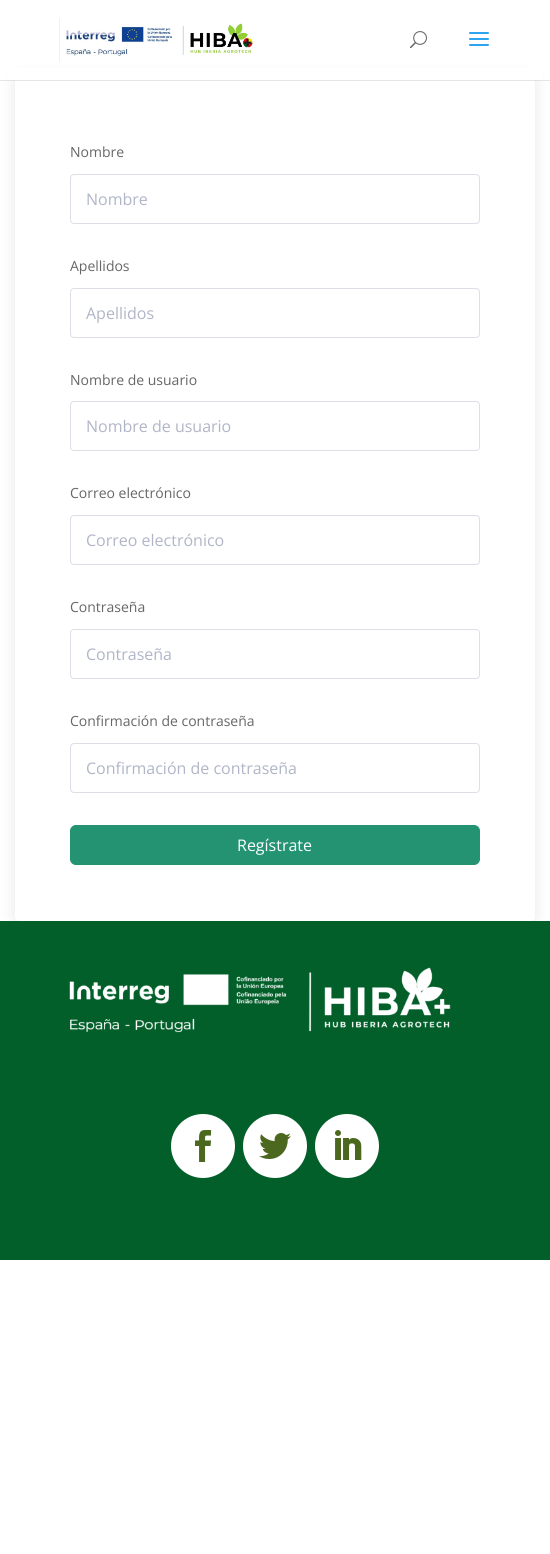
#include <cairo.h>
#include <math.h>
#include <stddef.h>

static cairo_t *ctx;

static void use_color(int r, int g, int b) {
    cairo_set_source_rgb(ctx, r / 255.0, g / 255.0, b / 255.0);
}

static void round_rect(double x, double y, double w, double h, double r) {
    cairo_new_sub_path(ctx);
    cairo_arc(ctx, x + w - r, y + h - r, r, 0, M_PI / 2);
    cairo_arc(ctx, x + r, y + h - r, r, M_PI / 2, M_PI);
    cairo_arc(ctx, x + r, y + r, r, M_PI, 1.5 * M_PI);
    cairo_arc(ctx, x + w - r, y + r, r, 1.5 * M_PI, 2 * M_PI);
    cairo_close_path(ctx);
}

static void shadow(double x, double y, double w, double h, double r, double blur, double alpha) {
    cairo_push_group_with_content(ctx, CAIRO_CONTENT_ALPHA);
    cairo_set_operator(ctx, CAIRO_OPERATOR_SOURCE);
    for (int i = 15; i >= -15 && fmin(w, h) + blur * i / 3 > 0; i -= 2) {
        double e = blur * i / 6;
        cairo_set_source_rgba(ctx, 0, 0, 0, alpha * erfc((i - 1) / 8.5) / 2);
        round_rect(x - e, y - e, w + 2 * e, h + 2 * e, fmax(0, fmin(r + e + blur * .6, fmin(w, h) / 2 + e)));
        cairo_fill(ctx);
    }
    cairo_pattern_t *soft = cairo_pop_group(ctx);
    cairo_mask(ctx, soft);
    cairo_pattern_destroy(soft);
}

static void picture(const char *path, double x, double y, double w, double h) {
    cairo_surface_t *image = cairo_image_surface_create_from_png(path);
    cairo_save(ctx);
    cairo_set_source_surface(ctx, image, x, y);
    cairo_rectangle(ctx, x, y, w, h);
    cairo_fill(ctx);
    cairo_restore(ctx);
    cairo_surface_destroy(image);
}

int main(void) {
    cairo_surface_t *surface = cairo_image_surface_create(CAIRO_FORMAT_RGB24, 550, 1554);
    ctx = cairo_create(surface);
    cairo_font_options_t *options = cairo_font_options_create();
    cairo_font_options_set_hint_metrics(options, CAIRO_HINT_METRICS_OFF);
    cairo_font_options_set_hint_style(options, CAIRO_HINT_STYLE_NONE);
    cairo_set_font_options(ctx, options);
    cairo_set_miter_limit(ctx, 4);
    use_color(255, 255, 255);
    cairo_paint(ctx);
    cairo_save(ctx);
    cairo_set_fill_rule(ctx, CAIRO_FILL_RULE_EVEN_ODD);
    cairo_new_path(ctx);
    cairo_move_to(ctx, 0, 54);
    cairo_line_to(ctx, 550, 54);
    cairo_line_to(ctx, 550, 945);
    cairo_line_to(ctx, 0, 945);
    cairo_close_path(ctx);
    cairo_move_to(ctx, 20, 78);
    cairo_line_to(ctx, 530, 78);
    cairo_curve_to(ctx, 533, 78, 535, 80, 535, 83);
    cairo_line_to(ctx, 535, 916);
    cairo_curve_to(ctx, 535, 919, 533, 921, 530, 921);
    cairo_line_to(ctx, 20, 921);
    cairo_curve_to(ctx, 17, 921, 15, 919, 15, 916);
    cairo_line_to(ctx, 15, 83);
    cairo_curve_to(ctx, 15, 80, 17, 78, 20, 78);
    cairo_close_path(ctx);
    cairo_clip(ctx);
    use_color(0, 0, 0);
    shadow(15, 78, 520, 843, 5, 7.5, 0.1);
    cairo_restore(ctx);
    cairo_set_source_rgba(ctx, 0, 0, 0, 0.1);
    cairo_rectangle(ctx, 0, 80, 550, 1);
    cairo_fill(ctx);
    use_color(255, 255, 255);
    cairo_rectangle(ctx, 8, 68, 534, 12);
    cairo_fill(ctx);
    picture("img1.png", 59, 18, 194, 44);
    picture("img2.png", 410, 31, 17, 18);
    picture("img3.png", 469, 32, 20, 14);
    cairo_select_font_face(ctx, "Open Sans", CAIRO_FONT_SLANT_NORMAL, CAIRO_FONT_WEIGHT_NORMAL);
    cairo_set_font_size(ctx, 14);
    use_color(102, 102, 102);
    cairo_move_to(ctx, 70, 157);
    cairo_show_text(ctx, "Nombre");
    round_rect(70.5, 174.5, 409, 49, 3.5);
    use_color(220, 223, 229);
    cairo_set_line_width(ctx, 1);
    cairo_stroke(ctx);
    cairo_set_font_size(ctx, 16);
    use_color(176, 182, 200);
    cairo_move_to(ctx, 86, 205);
    cairo_show_text(ctx, "Nombre");
    cairo_set_font_size(ctx, 14);
    use_color(102, 102, 102);
    cairo_move_to(ctx, 70, 271);
    cairo_show_text(ctx, "Apellidos");
    round_rect(70.5, 288.5, 409, 49, 3.5);
    use_color(220, 223, 229);
    cairo_stroke(ctx);
    cairo_set_font_size(ctx, 16);
    use_color(176, 182, 200);
    cairo_move_to(ctx, 86, 319);
    cairo_show_text(ctx, "Apellidos");
    cairo_set_font_size(ctx, 14);
    use_color(102, 102, 102);
    cairo_move_to(ctx, 70, 385);
    cairo_show_text(ctx, "Nombre de usuario");
    round_rect(70.5, 401.5, 409, 49, 3.5);
    use_color(220, 223, 229);
    cairo_stroke(ctx);
    cairo_set_font_size(ctx, 16);
    use_color(176, 182, 200);
    cairo_move_to(ctx, 86, 432);
    cairo_show_text(ctx, "Nombre de usuario");
    cairo_set_font_size(ctx, 14);
    use_color(102, 102, 102);
    cairo_move_to(ctx, 70, 498);
    cairo_show_text(ctx, "Correo electrónico");
    round_rect(70.5, 515.5, 409, 49, 3.5);
    use_color(220, 223, 229);
    cairo_stroke(ctx);
    cairo_set_font_size(ctx, 16);
    use_color(176, 182, 200);
    cairo_move_to(ctx, 86, 546);
    cairo_show_text(ctx, "Correo electrónico");
    cairo_set_font_size(ctx, 14);
    use_color(102, 102, 102);
    cairo_move_to(ctx, 70, 612);
    cairo_show_text(ctx, "Contraseña");
    round_rect(70.5, 629.5, 409, 49, 3.5);
    use_color(220, 223, 229);
    cairo_stroke(ctx);
    cairo_set_font_size(ctx, 16);
    use_color(176, 182, 200);
    cairo_move_to(ctx, 86, 660);
    cairo_show_text(ctx, "Contraseña");
    cairo_set_font_size(ctx, 14);
    use_color(102, 102, 102);
    cairo_move_to(ctx, 70, 726);
    cairo_show_text(ctx, "Confirmación de contraseña");
    round_rect(70.5, 743.5, 409, 49, 3.5);
    use_color(220, 223, 229);
    cairo_stroke(ctx);
    cairo_set_font_size(ctx, 16);
    use_color(176, 182, 200);
    cairo_move_to(ctx, 86, 774);
    cairo_show_text(ctx, "Confirmación de contraseña");
    use_color(35, 147, 113);
    round_rect(70.5, 825.5, 409, 39, 5.5);
    cairo_fill_preserve(ctx);
    cairo_stroke(ctx);
    use_color(255, 255, 255);
    cairo_move_to(ctx, 237, 851);
    cairo_show_text(ctx, "Regístrate");
    use_color(2, 95, 42);
    cairo_rectangle(ctx, 0, 921, 550, 339);
    cairo_fill(ctx);
    picture("img4.png", 69, 967, 382, 66);
    use_color(255, 255, 255);
    cairo_arc(ctx, 203, 1146, 32, 0, 2 * M_PI);
    cairo_fill(ctx);
    picture("img5.png", 195, 1130, 17, 32);
    cairo_arc(ctx, 275, 1146, 32, 0, 2 * M_PI);
    cairo_fill(ctx);
    picture("img6.png", 259, 1133, 32, 26);
    cairo_arc(ctx, 347, 1146, 32, 0, 2 * M_PI);
    cairo_fill(ctx);
    picture("img7.png", 335, 1130, 27, 30);
    cairo_surface_write_to_png(surface, "result.png");
    cairo_font_options_destroy(options);
    cairo_destroy(ctx);
    cairo_surface_destroy(surface);
    return 0;
}
